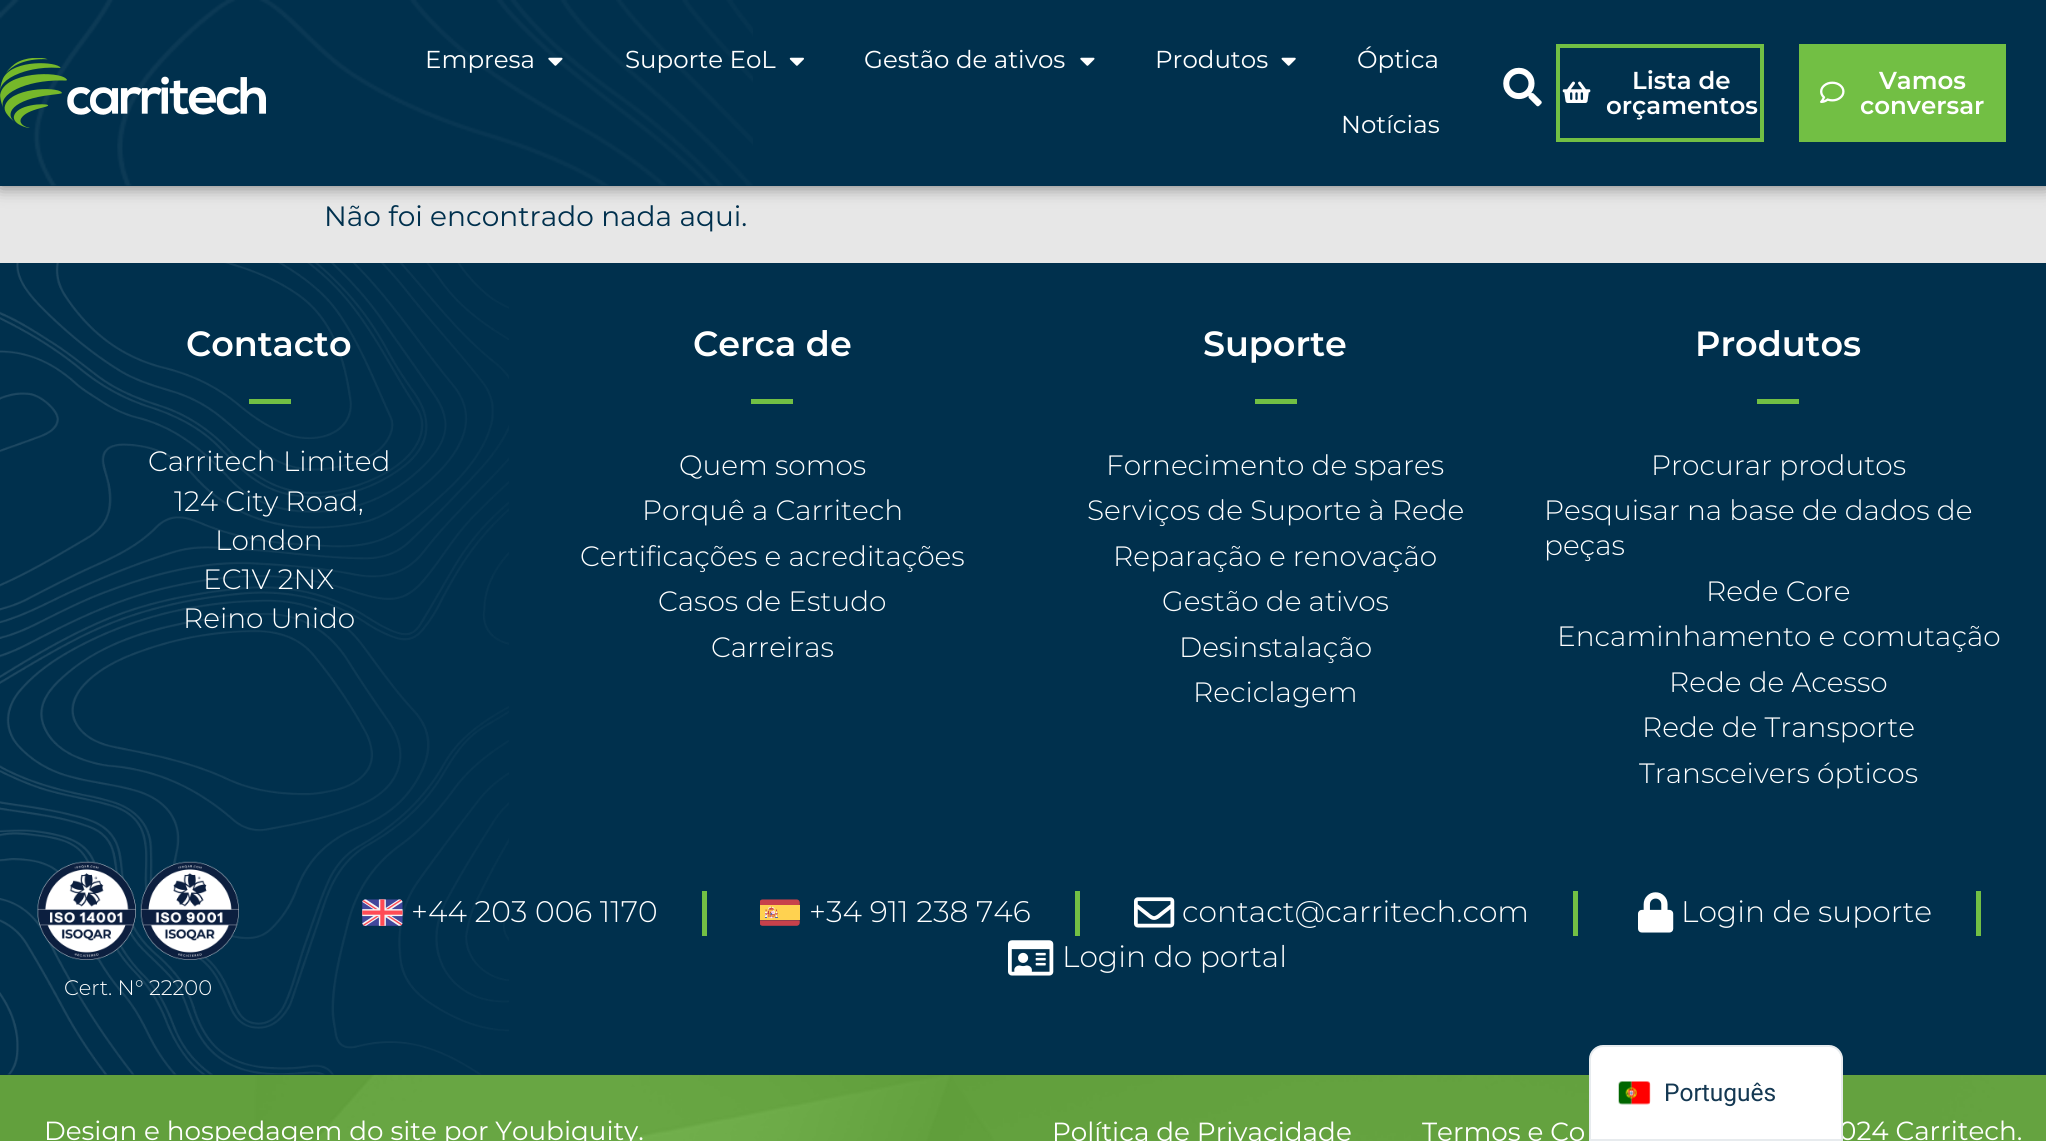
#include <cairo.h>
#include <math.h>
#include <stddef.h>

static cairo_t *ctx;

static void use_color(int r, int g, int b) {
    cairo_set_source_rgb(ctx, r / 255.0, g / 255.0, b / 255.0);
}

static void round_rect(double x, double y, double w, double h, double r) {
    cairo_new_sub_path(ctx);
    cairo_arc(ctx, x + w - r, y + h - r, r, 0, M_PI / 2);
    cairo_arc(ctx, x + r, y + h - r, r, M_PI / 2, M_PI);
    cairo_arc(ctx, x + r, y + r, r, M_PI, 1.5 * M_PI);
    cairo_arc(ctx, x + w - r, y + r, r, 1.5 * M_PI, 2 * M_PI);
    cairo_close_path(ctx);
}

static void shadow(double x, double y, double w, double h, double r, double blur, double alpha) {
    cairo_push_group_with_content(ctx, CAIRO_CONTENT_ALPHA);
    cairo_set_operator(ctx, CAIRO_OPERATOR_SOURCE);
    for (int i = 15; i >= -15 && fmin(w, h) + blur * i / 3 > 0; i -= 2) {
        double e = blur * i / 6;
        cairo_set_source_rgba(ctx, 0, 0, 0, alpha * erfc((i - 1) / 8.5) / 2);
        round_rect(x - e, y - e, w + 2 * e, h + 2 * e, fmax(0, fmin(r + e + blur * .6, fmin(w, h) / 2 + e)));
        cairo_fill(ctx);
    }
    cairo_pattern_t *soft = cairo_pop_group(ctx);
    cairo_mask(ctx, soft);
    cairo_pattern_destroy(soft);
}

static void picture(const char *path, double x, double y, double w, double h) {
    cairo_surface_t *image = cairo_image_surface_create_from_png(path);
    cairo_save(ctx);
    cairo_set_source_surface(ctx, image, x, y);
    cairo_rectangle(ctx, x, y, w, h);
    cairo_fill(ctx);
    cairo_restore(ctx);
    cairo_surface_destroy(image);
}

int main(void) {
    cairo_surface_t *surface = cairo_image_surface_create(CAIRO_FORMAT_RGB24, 2046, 1141);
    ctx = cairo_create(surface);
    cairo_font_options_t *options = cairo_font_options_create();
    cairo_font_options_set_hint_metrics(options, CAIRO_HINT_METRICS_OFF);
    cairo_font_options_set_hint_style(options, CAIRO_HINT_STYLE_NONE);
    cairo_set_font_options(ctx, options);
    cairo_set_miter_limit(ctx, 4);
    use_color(231, 231, 231);
    cairo_paint(ctx);
    use_color(0, 0, 0);
    shadow(0, 0, 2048, 186, 0, 9, 0.5);
    use_color(0, 48, 77);
    cairo_rectangle(ctx, 0, 0, 2046, 186);
    cairo_fill(ctx);
    picture("img1.png", 0, 0, 753, 186);
    picture("img2.png", 0, 58, 266, 70);
    cairo_select_font_face(ctx, "Montserrat", CAIRO_FONT_SLANT_NORMAL, CAIRO_FONT_WEIGHT_NORMAL);
    cairo_set_font_size(ctx, 24.5);
    use_color(255, 255, 255);
    cairo_move_to(ctx, 425, 68);
    cairo_show_text(ctx, "Empresa");
    picture("img3.png", 548, 57, 15, 9);
    cairo_move_to(ctx, 625, 68);
    cairo_show_text(ctx, "Suporte EoL");
    picture("img4.png", 789, 57, 15, 9);
    cairo_move_to(ctx, 864, 68);
    cairo_show_text(ctx, "Gestão de ativos");
    picture("img5.png", 1080, 57, 15, 9);
    cairo_move_to(ctx, 1155, 68);
    cairo_show_text(ctx, "Produtos");
    picture("img6.png", 1281, 57, 15, 9);
    cairo_move_to(ctx, 1357, 68);
    cairo_show_text(ctx, "Óptica");
    cairo_move_to(ctx, 1341, 133);
    cairo_show_text(ctx, "Notícias");
    picture("img7.png", 1503, 67, 39, 40);
    cairo_rectangle(ctx, 1558, 46, 204, 94);
    use_color(114, 191, 68);
    cairo_set_line_width(ctx, 4);
    cairo_stroke(ctx);
    picture("img8.png", 1562, 81, 29, 22);
    cairo_select_font_face(ctx, "Montserrat SemiBold", CAIRO_FONT_SLANT_NORMAL, CAIRO_FONT_WEIGHT_NORMAL);
    use_color(255, 255, 255);
    cairo_move_to(ctx, 1632, 89);
    cairo_show_text(ctx, "Lista de");
    cairo_move_to(ctx, 1606, 114);
    cairo_show_text(ctx, "orçamentos");
    use_color(114, 191, 68);
    cairo_rectangle(ctx, 1799, 44, 207, 98);
    cairo_fill(ctx);
    picture("img9.png", 1820, 81, 25, 22);
    use_color(255, 255, 255);
    cairo_move_to(ctx, 1879, 89);
    cairo_show_text(ctx, "Vamos");
    cairo_move_to(ctx, 1860, 114);
    cairo_show_text(ctx, "conversar");
    cairo_select_font_face(ctx, "Montserrat", CAIRO_FONT_SLANT_NORMAL, CAIRO_FONT_WEIGHT_NORMAL);
    cairo_set_font_size(ctx, 28);
    use_color(0, 48, 77);
    cairo_move_to(ctx, 324, 226);
    cairo_show_text(ctx, "Não foi encontrado nada aqui.");
    cairo_rectangle(ctx, 0, 263, 2046, 812);
    cairo_fill(ctx);
    picture("img10.png", 0, 263, 509, 812);
    cairo_select_font_face(ctx, "Montserrat SemiBold", CAIRO_FONT_SLANT_NORMAL, CAIRO_FONT_WEIGHT_NORMAL);
    cairo_set_font_size(ctx, 35);
    use_color(255, 255, 255);
    cairo_move_to(ctx, 186, 356);
    cairo_show_text(ctx, "Contacto");
    use_color(114, 191, 68);
    cairo_rectangle(ctx, 249, 399, 42, 5);
    cairo_fill(ctx);
    cairo_select_font_face(ctx, "Montserrat Light", CAIRO_FONT_SLANT_NORMAL, CAIRO_FONT_WEIGHT_NORMAL);
    cairo_set_font_size(ctx, 28);
    use_color(255, 255, 255);
    cairo_move_to(ctx, 148, 471);
    cairo_show_text(ctx, "Carritech Limited");
    cairo_move_to(ctx, 174, 511);
    cairo_show_text(ctx, "124 City Road,");
    cairo_move_to(ctx, 215, 550);
    cairo_show_text(ctx, "London");
    cairo_move_to(ctx, 203, 589);
    cairo_show_text(ctx, "EC1V 2NX");
    cairo_move_to(ctx, 183, 628);
    cairo_show_text(ctx, "Reino Unido");
    cairo_select_font_face(ctx, "Montserrat SemiBold", CAIRO_FONT_SLANT_NORMAL, CAIRO_FONT_WEIGHT_NORMAL);
    cairo_set_font_size(ctx, 35);
    cairo_move_to(ctx, 693, 356);
    cairo_show_text(ctx, "Cerca de");
    use_color(114, 191, 68);
    cairo_rectangle(ctx, 751, 399, 42, 5);
    cairo_fill(ctx);
    cairo_select_font_face(ctx, "Montserrat Light", CAIRO_FONT_SLANT_NORMAL, CAIRO_FONT_WEIGHT_NORMAL);
    cairo_set_font_size(ctx, 28);
    use_color(255, 255, 255);
    cairo_move_to(ctx, 679, 475);
    cairo_show_text(ctx, "Quem somos");
    cairo_move_to(ctx, 642, 520);
    cairo_show_text(ctx, "Porquê a Carritech");
    cairo_move_to(ctx, 580, 566);
    cairo_show_text(ctx, "Certificações e acreditações");
    cairo_move_to(ctx, 658, 611);
    cairo_show_text(ctx, "Casos de Estudo");
    cairo_move_to(ctx, 711, 657);
    cairo_show_text(ctx, "Carreiras");
    cairo_select_font_face(ctx, "Montserrat SemiBold", CAIRO_FONT_SLANT_NORMAL, CAIRO_FONT_WEIGHT_NORMAL);
    cairo_set_font_size(ctx, 35);
    cairo_move_to(ctx, 1203, 356);
    cairo_show_text(ctx, "Suporte");
    use_color(114, 191, 68);
    cairo_rectangle(ctx, 1255, 399, 42, 5);
    cairo_fill(ctx);
    cairo_select_font_face(ctx, "Montserrat Light", CAIRO_FONT_SLANT_NORMAL, CAIRO_FONT_WEIGHT_NORMAL);
    cairo_set_font_size(ctx, 28);
    use_color(255, 255, 255);
    cairo_move_to(ctx, 1106, 475);
    cairo_show_text(ctx, "Fornecimento de spares");
    cairo_move_to(ctx, 1087, 520);
    cairo_show_text(ctx, "Serviços de Suporte à Rede");
    cairo_move_to(ctx, 1113, 566);
    cairo_show_text(ctx, "Reparação e renovação");
    cairo_move_to(ctx, 1162, 611);
    cairo_show_text(ctx, "Gestão de ativos");
    cairo_move_to(ctx, 1179, 657);
    cairo_show_text(ctx, "Desinstalação");
    cairo_move_to(ctx, 1193, 702);
    cairo_show_text(ctx, "Reciclagem");
    cairo_select_font_face(ctx, "Montserrat SemiBold", CAIRO_FONT_SLANT_NORMAL, CAIRO_FONT_WEIGHT_NORMAL);
    cairo_set_font_size(ctx, 35);
    cairo_move_to(ctx, 1695, 356);
    cairo_show_text(ctx, "Produtos");
    use_color(114, 191, 68);
    cairo_rectangle(ctx, 1757, 399, 42, 5);
    cairo_fill(ctx);
    cairo_select_font_face(ctx, "Montserrat Light", CAIRO_FONT_SLANT_NORMAL, CAIRO_FONT_WEIGHT_NORMAL);
    cairo_set_font_size(ctx, 28);
    use_color(255, 255, 255);
    cairo_move_to(ctx, 1651, 475);
    cairo_show_text(ctx, "Procurar produtos");
    cairo_move_to(ctx, 1544, 520);
    cairo_show_text(ctx, "Pesquisar na base de dados de");
    cairo_move_to(ctx, 1544, 555);
    cairo_show_text(ctx, "peças");
    cairo_move_to(ctx, 1706, 601);
    cairo_show_text(ctx, "Rede Core");
    cairo_move_to(ctx, 1557, 646);
    cairo_show_text(ctx, "Encaminhamento e comutação");
    cairo_move_to(ctx, 1669, 692);
    cairo_show_text(ctx, "Rede de Acesso");
    cairo_move_to(ctx, 1642, 737);
    cairo_show_text(ctx, "Rede de Transporte");
    cairo_move_to(ctx, 1639, 783);
    cairo_show_text(ctx, "Transceivers ópticos");
    picture("img11.png", 362, 899, 41, 27);
    cairo_set_font_size(ctx, 29.75);
    cairo_move_to(ctx, 411, 922);
    cairo_show_text(ctx, "+44 203 006 1170");
    use_color(114, 191, 68);
    cairo_rectangle(ctx, 702, 891, 5, 45);
    cairo_fill(ctx);
    picture("img12.png", 760, 899, 40, 27);
    use_color(255, 255, 255);
    cairo_move_to(ctx, 809, 922);
    cairo_show_text(ctx, "+34 911 238 746");
    use_color(114, 191, 68);
    cairo_rectangle(ctx, 1075, 891, 5, 45);
    cairo_fill(ctx);
    picture("img13.png", 1134, 897, 41, 31);
    use_color(255, 255, 255);
    cairo_move_to(ctx, 1182, 922);
    cairo_show_text(ctx, "contact@carritech.com");
    use_color(114, 191, 68);
    cairo_rectangle(ctx, 1573, 891, 5, 45);
    cairo_fill(ctx);
    picture("img14.png", 1638, 892, 36, 41);
    use_color(255, 255, 255);
    cairo_move_to(ctx, 1681, 922);
    cairo_show_text(ctx, "Login de suporte");
    use_color(114, 191, 68);
    cairo_rectangle(ctx, 1976, 891, 5, 45);
    cairo_fill(ctx);
    picture("img15.png", 1008, 940, 46, 36);
    use_color(255, 255, 255);
    cairo_move_to(ctx, 1062, 967);
    cairo_show_text(ctx, "Login do portal");
    picture("img16.png", 37, 861, 99, 99);
    picture("img17.png", 140, 861, 99, 99);
    cairo_set_font_size(ctx, 21);
    cairo_move_to(ctx, 64, 995);
    cairo_show_text(ctx, "Cert. N° 22200");
    use_color(114, 191, 68);
    cairo_rectangle(ctx, 0, 1075, 2046, 66);
    cairo_fill(ctx);
    picture("img18.png", 0, 1074, 2046, 67);
    cairo_select_font_face(ctx, "Montserrat", CAIRO_FONT_SLANT_NORMAL, CAIRO_FONT_WEIGHT_NORMAL);
    cairo_set_font_size(ctx, 26.25);
    use_color(255, 255, 255);
    cairo_move_to(ctx, 44, 1140);
    cairo_show_text(ctx, "Design e hospedagem do site por Youbiquity.");
    cairo_move_to(ctx, 1052, 1141);
    cairo_show_text(ctx, "Política de Privacidade");
    cairo_move_to(ctx, 1422, 1141);
    cairo_show_text(ctx, "Termos e Co");
    cairo_move_to(ctx, 1839, 1140);
    cairo_show_text(ctx, "024 Carritech.");
    cairo_new_path(ctx);
    cairo_move_to(ctx, 1603, 1045);
    cairo_line_to(ctx, 1829, 1045);
    cairo_curve_to(ctx, 1836.5, 1045, 1843, 1051.5, 1843, 1059);
    cairo_line_to(ctx, 1843, 1141);
    cairo_line_to(ctx, 1589, 1141);
    cairo_line_to(ctx, 1589, 1059);
    cairo_curve_to(ctx, 1589, 1051.5, 1595.5, 1045, 1603, 1045);
    cairo_close_path(ctx);
    cairo_fill(ctx);
    cairo_new_path(ctx);
    cairo_move_to(ctx, 1603, 1046);
    cairo_line_to(ctx, 1829, 1046);
    cairo_curve_to(ctx, 1836, 1046, 1842, 1052, 1842, 1059);
    cairo_line_to(ctx, 1842, 1140);
    cairo_line_to(ctx, 1590, 1140);
    cairo_line_to(ctx, 1590, 1059);
    cairo_curve_to(ctx, 1590, 1052, 1596, 1046, 1603, 1046);
    cairo_close_path(ctx);
    cairo_set_source_rgba(ctx, 0.078, 0.22, 0.322, 0.1);
    cairo_set_line_width(ctx, 2);
    cairo_stroke(ctx);
    picture("img19.png", 1618, 1081, 33, 24);
    cairo_select_font_face(ctx, "Roboto", CAIRO_FONT_SLANT_NORMAL, CAIRO_FONT_WEIGHT_NORMAL);
    cairo_set_font_size(ctx, 24.5);
    use_color(20, 56, 82);
    cairo_move_to(ctx, 1664, 1101);
    cairo_show_text(ctx, "Português");
    cairo_surface_write_to_png(surface, "result.png");
    cairo_font_options_destroy(options);
    cairo_destroy(ctx);
    cairo_surface_destroy(surface);
    return 0;
}
